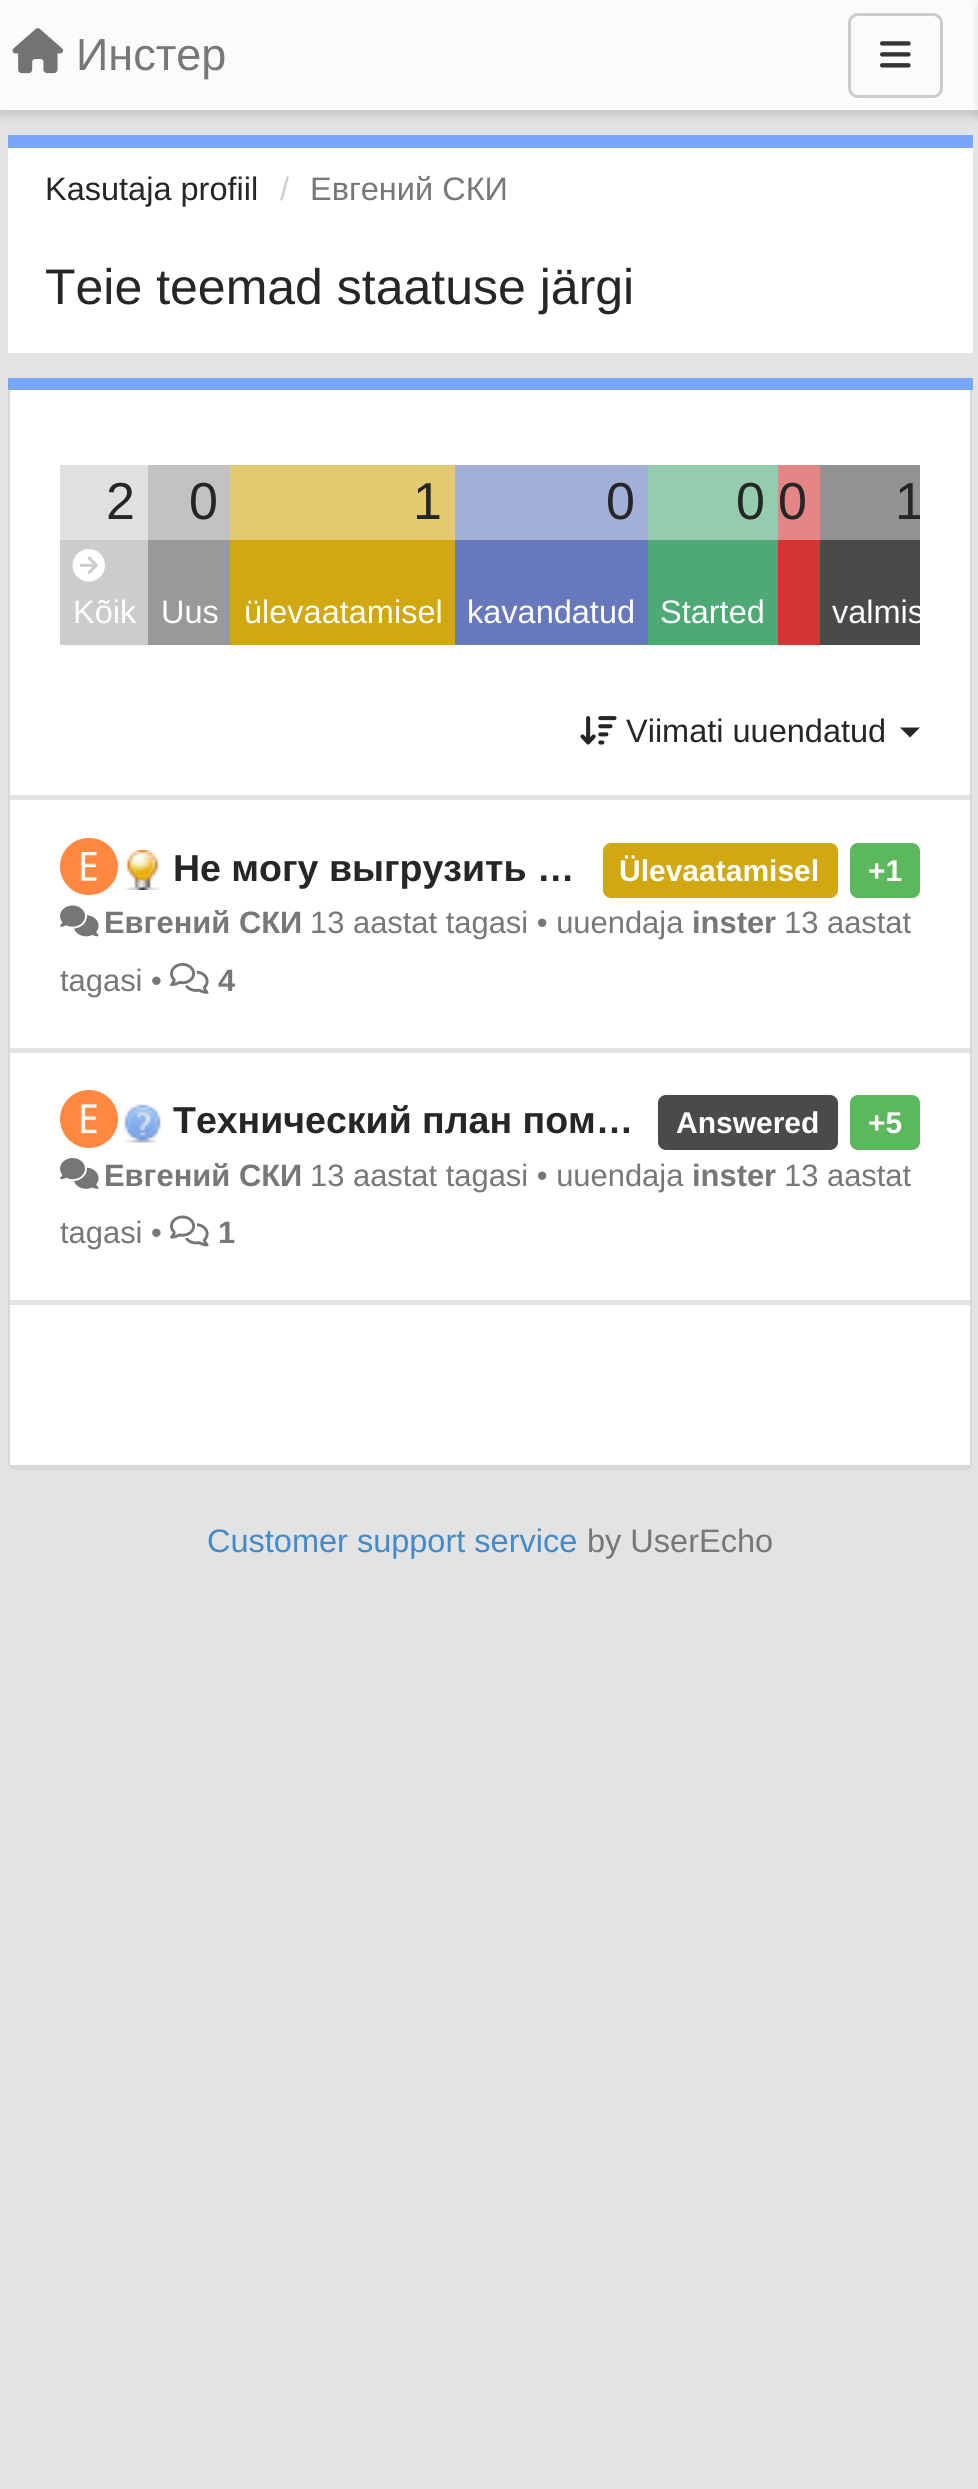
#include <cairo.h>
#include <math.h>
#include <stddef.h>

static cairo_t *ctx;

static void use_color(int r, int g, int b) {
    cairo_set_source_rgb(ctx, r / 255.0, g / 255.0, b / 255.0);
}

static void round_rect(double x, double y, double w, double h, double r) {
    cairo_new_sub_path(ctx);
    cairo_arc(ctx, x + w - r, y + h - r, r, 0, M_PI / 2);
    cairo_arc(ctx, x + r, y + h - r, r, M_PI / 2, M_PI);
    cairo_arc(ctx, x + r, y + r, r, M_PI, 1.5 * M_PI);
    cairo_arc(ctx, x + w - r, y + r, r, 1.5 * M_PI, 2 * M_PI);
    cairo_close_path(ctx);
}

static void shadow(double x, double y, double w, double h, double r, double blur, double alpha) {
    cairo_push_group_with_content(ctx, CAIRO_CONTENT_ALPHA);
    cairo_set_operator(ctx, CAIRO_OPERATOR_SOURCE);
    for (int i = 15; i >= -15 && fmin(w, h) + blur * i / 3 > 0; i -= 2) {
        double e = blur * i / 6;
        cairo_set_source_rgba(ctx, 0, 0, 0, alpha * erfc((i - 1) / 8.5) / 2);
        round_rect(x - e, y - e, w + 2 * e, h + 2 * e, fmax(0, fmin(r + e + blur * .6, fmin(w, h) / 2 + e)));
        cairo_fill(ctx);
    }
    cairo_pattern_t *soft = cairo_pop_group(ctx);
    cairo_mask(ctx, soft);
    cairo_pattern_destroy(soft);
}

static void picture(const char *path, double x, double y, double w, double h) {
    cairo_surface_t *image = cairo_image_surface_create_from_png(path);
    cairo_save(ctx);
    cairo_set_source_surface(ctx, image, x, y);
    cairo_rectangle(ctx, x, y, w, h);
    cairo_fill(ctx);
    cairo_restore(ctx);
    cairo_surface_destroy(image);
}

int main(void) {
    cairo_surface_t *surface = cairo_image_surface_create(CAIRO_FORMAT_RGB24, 978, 2489);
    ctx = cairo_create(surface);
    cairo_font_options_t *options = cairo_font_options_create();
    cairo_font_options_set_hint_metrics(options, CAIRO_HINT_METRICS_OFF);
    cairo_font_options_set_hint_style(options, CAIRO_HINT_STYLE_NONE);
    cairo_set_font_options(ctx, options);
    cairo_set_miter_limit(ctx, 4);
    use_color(227, 227, 227);
    cairo_paint(ctx);
    use_color(0, 0, 0);
    shadow(0, 5, 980, 110, 0, 5, 0.15);
    use_color(251, 251, 251);
    cairo_rectangle(ctx, 0, 0, 978, 110);
    cairo_fill(ctx);
    picture("img1.png", 12, 28, 52, 46);
    cairo_select_font_face(ctx, "Liberation Sans", CAIRO_FONT_SLANT_NORMAL, CAIRO_FONT_WEIGHT_NORMAL);
    cairo_set_font_size(ctx, 45);
    use_color(119, 119, 119);
    cairo_move_to(ctx, 76, 70);
    cairo_show_text(ctx, "Инстер");
    round_rect(849.5, 14.5, 92, 82, 8.5);
    use_color(204, 204, 204);
    cairo_set_line_width(ctx, 3);
    cairo_stroke(ctx);
    picture("img2.png", 880, 41, 31, 27);
    use_color(0, 0, 0);
    shadow(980, 5, 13, 110, 0, 5, 0.15);
    use_color(255, 255, 255);
    cairo_rectangle(ctx, 8, 148, 965, 205);
    cairo_fill(ctx);
    use_color(118, 167, 250);
    cairo_rectangle(ctx, 8, 135, 965, 13);
    cairo_fill(ctx);
    cairo_set_font_size(ctx, 32.5);
    use_color(38, 38, 38);
    cairo_move_to(ctx, 45, 200);
    cairo_show_text(ctx, "Kasutaja profiil");
    use_color(204, 204, 204);
    cairo_move_to(ctx, 280, 200);
    cairo_show_text(ctx, "/");
    use_color(119, 119, 119);
    cairo_move_to(ctx, 310, 200);
    cairo_show_text(ctx, "Евгений СКИ");
    cairo_set_font_size(ctx, 50);
    use_color(38, 38, 38);
    cairo_move_to(ctx, 45, 304);
    cairo_show_text(ctx, "Teie teemad staatuse järgi");
    use_color(118, 167, 250);
    cairo_rectangle(ctx, 8, 378, 965, 12);
    cairo_fill(ctx);
    use_color(216, 216, 216);
    cairo_set_fill_rule(ctx, CAIRO_FILL_RULE_EVEN_ODD);
    cairo_new_path(ctx);
    cairo_move_to(ctx, 8, 390);
    cairo_line_to(ctx, 972, 390);
    cairo_line_to(ctx, 972, 1462);
    cairo_curve_to(ctx, 972, 1467, 969, 1470, 965, 1470);
    cairo_line_to(ctx, 15, 1470);
    cairo_curve_to(ctx, 11, 1470, 8, 1467, 8, 1462);
    cairo_close_path(ctx);
    cairo_move_to(ctx, 10, 390);
    cairo_line_to(ctx, 970, 390);
    cairo_line_to(ctx, 970, 1462);
    cairo_curve_to(ctx, 970, 1464, 968, 1465, 965, 1465);
    cairo_line_to(ctx, 15, 1465);
    cairo_curve_to(ctx, 12, 1465, 10, 1464, 10, 1462);
    cairo_close_path(ctx);
    cairo_fill(ctx);
    use_color(255, 255, 255);
    cairo_rectangle(ctx, 10, 390, 960, 405);
    cairo_fill(ctx);
    use_color(224, 224, 224);
    cairo_rectangle(ctx, 60, 465, 88, 75);
    cairo_fill(ctx);
    cairo_set_font_size(ctx, 52);
    use_color(38, 38, 38);
    cairo_move_to(ctx, 106, 519);
    cairo_show_text(ctx, "2");
    use_color(194, 194, 194);
    cairo_rectangle(ctx, 148, 465, 82, 75);
    cairo_fill(ctx);
    use_color(38, 38, 38);
    cairo_move_to(ctx, 189, 519);
    cairo_show_text(ctx, "0");
    use_color(227, 202, 113);
    cairo_rectangle(ctx, 230, 465, 225, 75);
    cairo_fill(ctx);
    use_color(38, 38, 38);
    cairo_move_to(ctx, 413, 519);
    cairo_show_text(ctx, "1");
    use_color(164, 175, 215);
    cairo_rectangle(ctx, 455, 465, 193, 75);
    cairo_fill(ctx);
    use_color(38, 38, 38);
    cairo_move_to(ctx, 606, 519);
    cairo_show_text(ctx, "0");
    use_color(148, 204, 173);
    cairo_rectangle(ctx, 648, 465, 130, 75);
    cairo_fill(ctx);
    use_color(38, 38, 38);
    cairo_move_to(ctx, 736, 519);
    cairo_show_text(ctx, "0");
    use_color(230, 133, 133);
    cairo_rectangle(ctx, 778, 465, 42, 75);
    cairo_fill(ctx);
    use_color(38, 38, 38);
    cairo_move_to(ctx, 778, 519);
    cairo_show_text(ctx, "0");
    use_color(146, 146, 146);
    cairo_rectangle(ctx, 820, 465, 100, 75);
    cairo_fill(ctx);
    cairo_save(ctx);
    cairo_set_fill_rule(ctx, CAIRO_FILL_RULE_WINDING);
    cairo_rectangle(ctx, 60, 440, 860, 230);
    cairo_clip(ctx);
    use_color(38, 38, 38);
    cairo_move_to(ctx, 895, 519);
    cairo_show_text(ctx, "1");
    cairo_restore(ctx);
    use_color(204, 204, 204);
    cairo_rectangle(ctx, 60, 540, 88, 105);
    cairo_fill(ctx);
    picture("img3.png", 72, 549, 33, 33);
    cairo_set_font_size(ctx, 32.5);
    use_color(255, 255, 255);
    cairo_move_to(ctx, 73, 623);
    cairo_show_text(ctx, "Kõik");
    use_color(153, 153, 153);
    cairo_rectangle(ctx, 148, 540, 82, 105);
    cairo_fill(ctx);
    use_color(255, 255, 255);
    cairo_move_to(ctx, 161, 623);
    cairo_show_text(ctx, "Uus");
    use_color(209, 167, 18);
    cairo_rectangle(ctx, 230, 540, 225, 105);
    cairo_fill(ctx);
    use_color(255, 255, 255);
    cairo_move_to(ctx, 244, 623);
    cairo_show_text(ctx, "ülevaatamisel");
    use_color(103, 121, 188);
    cairo_rectangle(ctx, 455, 540, 193, 105);
    cairo_fill(ctx);
    use_color(255, 255, 255);
    cairo_move_to(ctx, 467, 623);
    cairo_show_text(ctx, "kavandatud");
    use_color(77, 170, 119);
    cairo_rectangle(ctx, 648, 540, 130, 105);
    cairo_fill(ctx);
    use_color(255, 255, 255);
    cairo_move_to(ctx, 660, 623);
    cairo_show_text(ctx, "Started");
    use_color(214, 51, 51);
    cairo_rectangle(ctx, 778, 540, 42, 105);
    cairo_fill(ctx);
    use_color(74, 74, 74);
    cairo_rectangle(ctx, 820, 540, 100, 105);
    cairo_fill(ctx);
    cairo_save(ctx);
    cairo_set_fill_rule(ctx, CAIRO_FILL_RULE_WINDING);
    cairo_rectangle(ctx, 60, 440, 860, 230);
    cairo_clip(ctx);
    use_color(255, 255, 255);
    cairo_move_to(ctx, 832, 623);
    cairo_show_text(ctx, "valmis");
    cairo_restore(ctx);
    picture("img4.png", 580, 716, 37, 29);
    use_color(38, 38, 38);
    cairo_move_to(ctx, 626, 742);
    cairo_show_text(ctx, "Viimati uuendatud");
    cairo_set_fill_rule(ctx, CAIRO_FILL_RULE_WINDING);
    cairo_new_path(ctx);
    cairo_move_to(ctx, 900, 727.5);
    cairo_line_to(ctx, 920, 727.5);
    cairo_line_to(ctx, 910, 737.5);
    cairo_close_path(ctx);
    cairo_fill(ctx);
    use_color(255, 255, 255);
    cairo_rectangle(ctx, 10, 800, 960, 248);
    cairo_fill(ctx);
    use_color(255, 136, 65);
    round_rect(60, 838, 58, 57, 28.5);
    cairo_fill(ctx);
    picture("img5.png", 80, 851, 17, 30);
    picture("img6.png", 124, 850, 37, 40);
    cairo_select_font_face(ctx, "Liberation Sans", CAIRO_FONT_SLANT_NORMAL, CAIRO_FONT_WEIGHT_BOLD);
    cairo_set_font_size(ctx, 37.5);
    use_color(38, 38, 38);
    cairo_move_to(ctx, 173, 881);
    cairo_show_text(ctx, "Не могу выгрузить …");
    use_color(209, 167, 18);
    round_rect(603, 843, 235, 55, 8);
    cairo_fill(ctx);
    cairo_set_font_size(ctx, 30);
    use_color(255, 255, 255);
    cairo_move_to(ctx, 619, 881);
    cairo_show_text(ctx, "Ülevaatamisel");
    use_color(92, 184, 92);
    round_rect(850, 843, 70, 55, 8);
    cairo_fill(ctx);
    use_color(255, 255, 255);
    cairo_move_to(ctx, 868, 881);
    cairo_show_text(ctx, "+1");
    picture("img7.png", 60, 905, 39, 32);
    cairo_set_font_size(ctx, 30.9);
    use_color(119, 119, 119);
    cairo_move_to(ctx, 104, 933);
    cairo_show_text(ctx, "Евгений СКИ");
    cairo_select_font_face(ctx, "Liberation Sans", CAIRO_FONT_SLANT_NORMAL, CAIRO_FONT_WEIGHT_NORMAL);
    cairo_move_to(ctx, 310, 933);
    cairo_show_text(ctx, "13 aastat tagasi • uuendaja");
    cairo_select_font_face(ctx, "Liberation Sans", CAIRO_FONT_SLANT_NORMAL, CAIRO_FONT_WEIGHT_BOLD);
    cairo_move_to(ctx, 692, 933);
    cairo_show_text(ctx, "inster");
    cairo_select_font_face(ctx, "Liberation Sans", CAIRO_FONT_SLANT_NORMAL, CAIRO_FONT_WEIGHT_NORMAL);
    cairo_move_to(ctx, 784, 933);
    cairo_show_text(ctx, "13 aastat");
    cairo_move_to(ctx, 60, 991);
    cairo_show_text(ctx, "tagasi •");
    picture("img8.png", 170, 963, 39, 31);
    cairo_select_font_face(ctx, "Liberation Sans", CAIRO_FONT_SLANT_NORMAL, CAIRO_FONT_WEIGHT_BOLD);
    cairo_move_to(ctx, 218, 991);
    cairo_show_text(ctx, "4");
    use_color(255, 255, 255);
    cairo_rectangle(ctx, 10, 1053, 960, 247);
    cairo_fill(ctx);
    use_color(255, 136, 65);
    cairo_arc(ctx, 89, 1119, 29, 0, 2 * M_PI);
    cairo_fill(ctx);
    picture("img9.png", 80, 1104, 17, 30);
    picture("img10.png", 124, 1104, 37, 39);
    cairo_set_font_size(ctx, 37.5);
    use_color(38, 38, 38);
    cairo_move_to(ctx, 173, 1133);
    cairo_show_text(ctx, "Технический план пом…");
    use_color(74, 74, 74);
    round_rect(658, 1095, 180, 55, 8);
    cairo_fill(ctx);
    cairo_set_font_size(ctx, 30);
    use_color(255, 255, 255);
    cairo_move_to(ctx, 676, 1133);
    cairo_show_text(ctx, "Answered");
    use_color(92, 184, 92);
    round_rect(850, 1095, 70, 55, 8);
    cairo_fill(ctx);
    use_color(255, 255, 255);
    cairo_move_to(ctx, 868, 1133);
    cairo_show_text(ctx, "+5");
    picture("img11.png", 60, 1158, 39, 31);
    cairo_set_font_size(ctx, 30.9);
    use_color(119, 119, 119);
    cairo_move_to(ctx, 104, 1186);
    cairo_show_text(ctx, "Евгений СКИ");
    cairo_select_font_face(ctx, "Liberation Sans", CAIRO_FONT_SLANT_NORMAL, CAIRO_FONT_WEIGHT_NORMAL);
    cairo_move_to(ctx, 310, 1186);
    cairo_show_text(ctx, "13 aastat tagasi • uuendaja");
    cairo_select_font_face(ctx, "Liberation Sans", CAIRO_FONT_SLANT_NORMAL, CAIRO_FONT_WEIGHT_BOLD);
    cairo_move_to(ctx, 692, 1186);
    cairo_show_text(ctx, "inster");
    cairo_select_font_face(ctx, "Liberation Sans", CAIRO_FONT_SLANT_NORMAL, CAIRO_FONT_WEIGHT_NORMAL);
    cairo_move_to(ctx, 784, 1186);
    cairo_show_text(ctx, "13 aastat");
    cairo_move_to(ctx, 60, 1243);
    cairo_show_text(ctx, "tagasi •");
    picture("img12.png", 170, 1215, 39, 32);
    cairo_select_font_face(ctx, "Liberation Sans", CAIRO_FONT_SLANT_NORMAL, CAIRO_FONT_WEIGHT_BOLD);
    cairo_move_to(ctx, 218, 1243);
    cairo_show_text(ctx, "1");
    use_color(255, 255, 255);
    cairo_rectangle(ctx, 10, 1305, 960, 160);
    cairo_fill(ctx);
    cairo_select_font_face(ctx, "Liberation Sans", CAIRO_FONT_SLANT_NORMAL, CAIRO_FONT_WEIGHT_NORMAL);
    cairo_set_font_size(ctx, 32.5);
    use_color(66, 139, 202);
    cairo_move_to(ctx, 207, 1552);
    cairo_show_text(ctx, "Customer support service");
    use_color(119, 119, 119);
    cairo_move_to(ctx, 587, 1552);
    cairo_show_text(ctx, "by UserEcho");
    cairo_surface_write_to_png(surface, "result.png");
    cairo_font_options_destroy(options);
    cairo_destroy(ctx);
    cairo_surface_destroy(surface);
    return 0;
}
